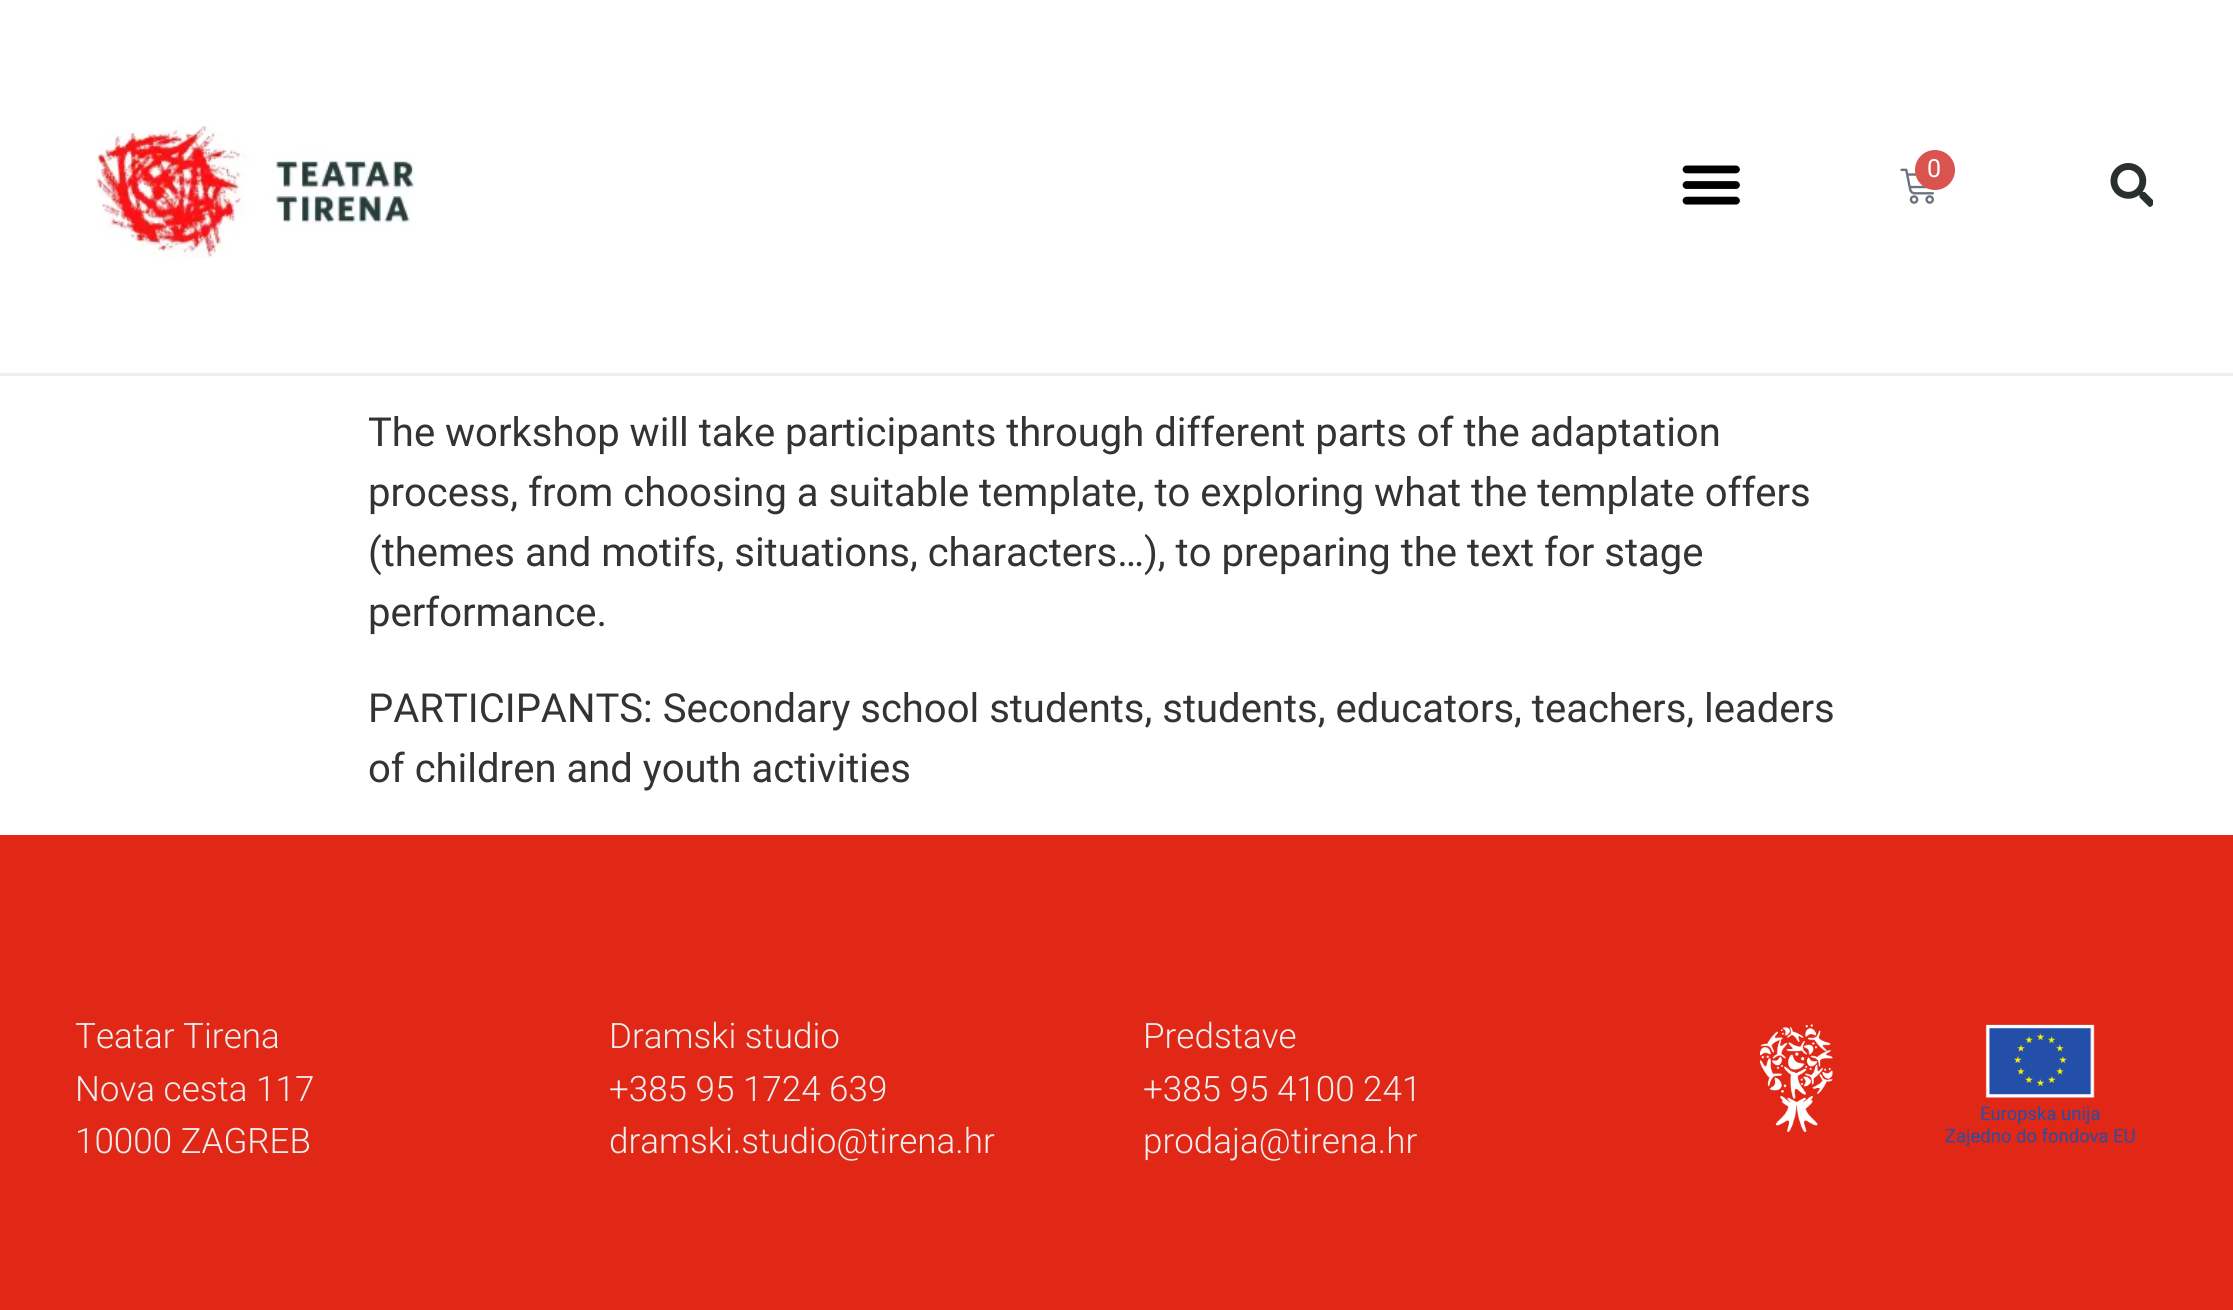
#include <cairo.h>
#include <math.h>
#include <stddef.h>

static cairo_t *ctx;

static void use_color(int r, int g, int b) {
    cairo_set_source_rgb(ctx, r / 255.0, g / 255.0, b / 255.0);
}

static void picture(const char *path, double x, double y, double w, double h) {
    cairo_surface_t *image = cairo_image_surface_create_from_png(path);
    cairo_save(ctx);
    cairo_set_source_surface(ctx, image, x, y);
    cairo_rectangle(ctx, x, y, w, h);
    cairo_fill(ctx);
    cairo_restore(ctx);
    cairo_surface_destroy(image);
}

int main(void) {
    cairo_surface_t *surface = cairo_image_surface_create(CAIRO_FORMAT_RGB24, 2233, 1310);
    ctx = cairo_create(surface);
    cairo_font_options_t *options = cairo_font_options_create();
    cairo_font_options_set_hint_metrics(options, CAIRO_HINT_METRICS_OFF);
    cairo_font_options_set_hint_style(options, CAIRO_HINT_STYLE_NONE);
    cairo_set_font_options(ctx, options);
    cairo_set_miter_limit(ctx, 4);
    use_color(255, 255, 255);
    cairo_paint(ctx);
    use_color(238, 238, 238);
    cairo_rectangle(ctx, 0, 373, 2233, 3);
    cairo_fill(ctx);
    picture("img1.png", 96, 124, 319, 134);
    picture("img2.png", 1682, 165, 58, 40);
    picture("img3.png", 1900, 168, 34, 36);
    use_color(217, 83, 79);
    cairo_arc(ctx, 1935, 170, 20, 0, 2 * M_PI);
    cairo_fill(ctx);
    cairo_select_font_face(ctx, "Roboto", CAIRO_FONT_SLANT_NORMAL, CAIRO_FONT_WEIGHT_NORMAL);
    cairo_set_font_size(ctx, 25);
    use_color(255, 255, 255);
    cairo_move_to(ctx, 1927, 177);
    cairo_show_text(ctx, "0");
    picture("img4.png", 2110, 163, 43, 44);
    cairo_set_font_size(ctx, 40);
    use_color(51, 51, 51);
    cairo_move_to(ctx, 368, 446);
    cairo_show_text(ctx, "The workshop will take participants through different parts of the adaptation");
    cairo_move_to(ctx, 368, 506);
    cairo_show_text(ctx, "process, from choosing a suitable template, to exploring what the template offers");
    cairo_move_to(ctx, 368, 566);
    cairo_show_text(ctx, "(themes and motifs, situations, characters…), to preparing the text for stage");
    cairo_move_to(ctx, 368, 626);
    cairo_show_text(ctx, "performance.");
    cairo_move_to(ctx, 368, 722);
    cairo_show_text(ctx, "PARTICIPANTS: Secondary school students, students, educators, teachers, leaders");
    cairo_move_to(ctx, 368, 782);
    cairo_show_text(ctx, "of children and youth activities");
    use_color(225, 39, 22);
    cairo_rectangle(ctx, 0, 835, 2233, 475);
    cairo_fill(ctx);
    cairo_select_font_face(ctx, "Roboto Light", CAIRO_FONT_SLANT_NORMAL, CAIRO_FONT_WEIGHT_NORMAL);
    cairo_set_font_size(ctx, 35);
    use_color(238, 238, 238);
    cairo_move_to(ctx, 75, 1048);
    cairo_show_text(ctx, "Teatar Tirena");
    cairo_move_to(ctx, 75, 1101);
    cairo_show_text(ctx, "Nova cesta 117");
    cairo_move_to(ctx, 75, 1153);
    cairo_show_text(ctx, "10000 ZAGREB");
    cairo_move_to(ctx, 609, 1048);
    cairo_show_text(ctx, "Dramski studio");
    cairo_move_to(ctx, 609, 1101);
    cairo_show_text(ctx, "+385 95 1724 639");
    cairo_move_to(ctx, 609, 1153);
    cairo_show_text(ctx, "dramski.studio@tirena.hr");
    cairo_move_to(ctx, 1143, 1048);
    cairo_show_text(ctx, "Predstave");
    cairo_move_to(ctx, 1143, 1101);
    cairo_show_text(ctx, "+385 95 4100 241");
    cairo_move_to(ctx, 1143, 1153);
    cairo_show_text(ctx, "prodaja@tirena.hr");
    picture("img5.png", 1760, 1024, 73, 108);
    picture("img6.png", 1945, 1024, 190, 123);
    cairo_surface_write_to_png(surface, "result.png");
    cairo_font_options_destroy(options);
    cairo_destroy(ctx);
    cairo_surface_destroy(surface);
    return 0;
}
